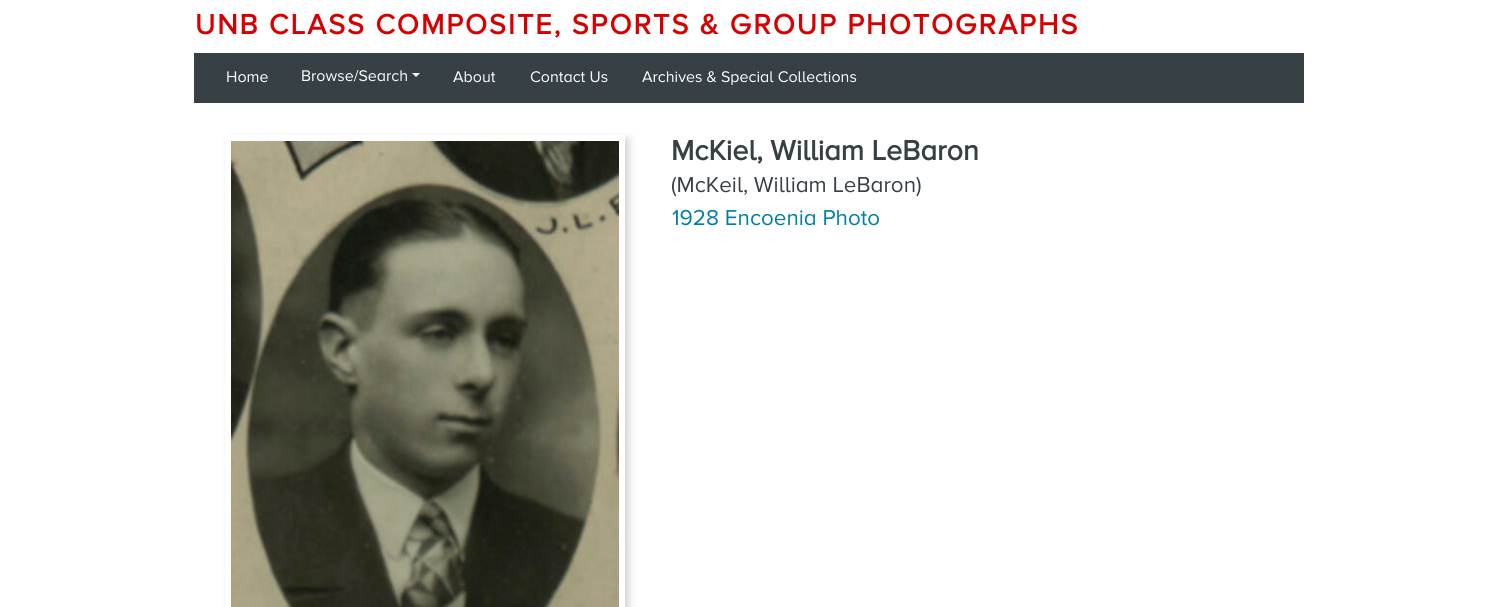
#include <cairo.h>
#include <math.h>
#include <stddef.h>

static cairo_t *ctx;

static void use_color(int r, int g, int b) {
    cairo_set_source_rgb(ctx, r / 255.0, g / 255.0, b / 255.0);
}

static void spaced_text(double x, double y, const char *s, double letter, double word) {
    cairo_move_to(ctx, x, y);
    while (*s) {
        char ch[5] = {0};
        int n = 0;
        do ch[n++] = *s++; while ((*s & 0xC0) == 0x80);
        cairo_show_text(ctx, ch);
        cairo_rel_move_to(ctx, letter + word * (*ch == ' '), 0);
    }
}

static void round_rect(double x, double y, double w, double h, double r) {
    cairo_new_sub_path(ctx);
    cairo_arc(ctx, x + w - r, y + h - r, r, 0, M_PI / 2);
    cairo_arc(ctx, x + r, y + h - r, r, M_PI / 2, M_PI);
    cairo_arc(ctx, x + r, y + r, r, M_PI, 1.5 * M_PI);
    cairo_arc(ctx, x + w - r, y + r, r, 1.5 * M_PI, 2 * M_PI);
    cairo_close_path(ctx);
}

static void shadow(double x, double y, double w, double h, double r, double blur, double alpha) {
    cairo_push_group_with_content(ctx, CAIRO_CONTENT_ALPHA);
    cairo_set_operator(ctx, CAIRO_OPERATOR_SOURCE);
    for (int i = 15; i >= -15 && fmin(w, h) + blur * i / 3 > 0; i -= 2) {
        double e = blur * i / 6;
        cairo_set_source_rgba(ctx, 0, 0, 0, alpha * erfc((i - 1) / 8.5) / 2);
        round_rect(x - e, y - e, w + 2 * e, h + 2 * e, fmax(0, fmin(r + e + blur * .6, fmin(w, h) / 2 + e)));
        cairo_fill(ctx);
    }
    cairo_pattern_t *soft = cairo_pop_group(ctx);
    cairo_mask(ctx, soft);
    cairo_pattern_destroy(soft);
}

static void picture(const char *path, double x, double y, double w, double h) {
    cairo_surface_t *image = cairo_image_surface_create_from_png(path);
    cairo_save(ctx);
    cairo_set_source_surface(ctx, image, x, y);
    cairo_rectangle(ctx, x, y, w, h);
    cairo_fill(ctx);
    cairo_restore(ctx);
    cairo_surface_destroy(image);
}

int main(void) {
    cairo_surface_t *surface = cairo_image_surface_create(CAIRO_FORMAT_RGB24, 1497, 607);
    ctx = cairo_create(surface);
    cairo_font_options_t *options = cairo_font_options_create();
    cairo_font_options_set_hint_metrics(options, CAIRO_HINT_METRICS_OFF);
    cairo_font_options_set_hint_style(options, CAIRO_HINT_STYLE_NONE);
    cairo_set_font_options(ctx, options);
    cairo_set_miter_limit(ctx, 4);
    use_color(255, 255, 255);
    cairo_paint(ctx);
    cairo_select_font_face(ctx, "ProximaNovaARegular", CAIRO_FONT_SLANT_NORMAL, CAIRO_FONT_WEIGHT_BOLD);
    cairo_set_font_size(ctx, 28.8);
    use_color(215, 0, 0);
    spaced_text(195, 34, "UNB CLASS COMPOSITE, SPORTS & GROUP PHOTOGRAPHS", 2, 0);
    use_color(54, 64, 69);
    cairo_rectangle(ctx, 194, 53, 1110, 50);
    cairo_fill(ctx);
    cairo_select_font_face(ctx, "ProximaNovaARegular", CAIRO_FONT_SLANT_NORMAL, CAIRO_FONT_WEIGHT_NORMAL);
    cairo_set_font_size(ctx, 16);
    use_color(255, 255, 255);
    cairo_move_to(ctx, 226, 82);
    cairo_show_text(ctx, "Home");
    cairo_move_to(ctx, 301, 81);
    cairo_show_text(ctx, "Browse/Search");
    cairo_new_path(ctx);
    cairo_move_to(ctx, 412, 73);
    cairo_line_to(ctx, 420, 73);
    cairo_line_to(ctx, 416, 77);
    cairo_close_path(ctx);
    cairo_fill(ctx);
    cairo_move_to(ctx, 453, 82);
    cairo_show_text(ctx, "About");
    cairo_move_to(ctx, 530, 82);
    cairo_show_text(ctx, "Contact Us");
    cairo_move_to(ctx, 642, 82);
    cairo_show_text(ctx, "Archives & Special Collections");
    cairo_save(ctx);
    cairo_set_fill_rule(ctx, CAIRO_FILL_RULE_EVEN_ODD);
    cairo_new_path(ctx);
    cairo_move_to(ctx, 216, 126);
    cairo_line_to(ctx, 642, 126);
    cairo_line_to(ctx, 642, 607);
    cairo_line_to(ctx, 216, 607);
    cairo_close_path(ctx);
    cairo_move_to(ctx, 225, 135);
    cairo_line_to(ctx, 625, 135);
    cairo_line_to(ctx, 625, 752);
    cairo_line_to(ctx, 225, 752);
    cairo_close_path(ctx);
    cairo_clip(ctx);
    use_color(211, 211, 211);
    shadow(229, 139, 400, 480, 0, 4, 1);
    cairo_restore(ctx);
    picture("img1.png", 231, 141, 388, 466);
    cairo_select_font_face(ctx, "ProximaNovaARegular", CAIRO_FONT_SLANT_NORMAL, CAIRO_FONT_WEIGHT_BOLD);
    cairo_set_font_size(ctx, 28.8);
    use_color(54, 64, 69);
    cairo_move_to(ctx, 671, 160);
    cairo_show_text(ctx, "McKiel, William LeBaron");
    cairo_select_font_face(ctx, "ProximaNovaARegular", CAIRO_FONT_SLANT_NORMAL, CAIRO_FONT_WEIGHT_NORMAL);
    cairo_set_font_size(ctx, 22.4);
    cairo_move_to(ctx, 671, 192);
    cairo_show_text(ctx, "(McKeil, William LeBaron)");
    use_color(0, 127, 163);
    cairo_move_to(ctx, 672, 225);
    cairo_show_text(ctx, "1928 Encoenia Photo");
    cairo_surface_write_to_png(surface, "result.png");
    cairo_font_options_destroy(options);
    cairo_destroy(ctx);
    cairo_surface_destroy(surface);
    return 0;
}
